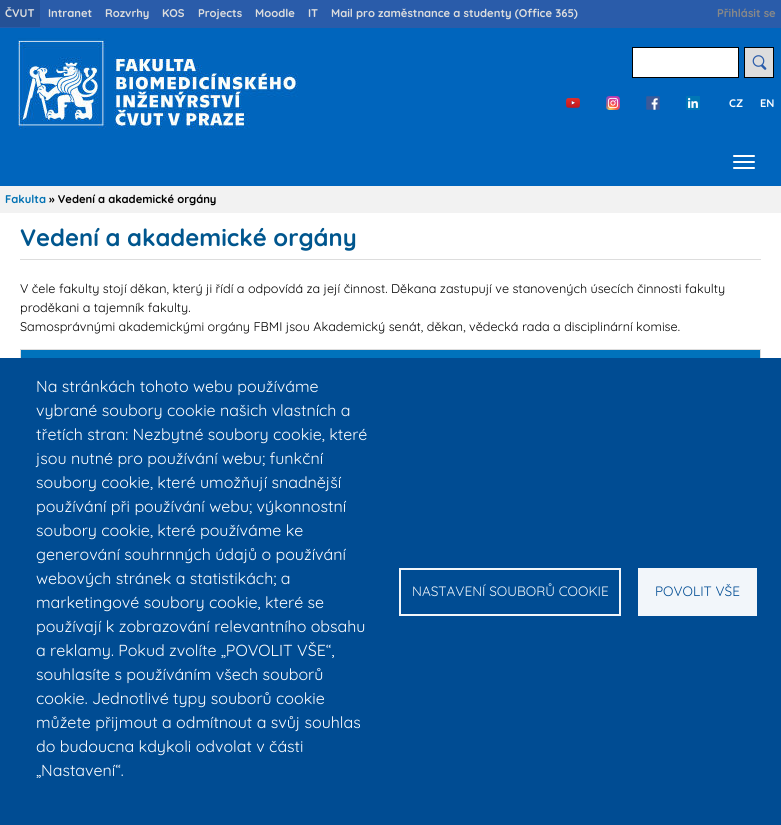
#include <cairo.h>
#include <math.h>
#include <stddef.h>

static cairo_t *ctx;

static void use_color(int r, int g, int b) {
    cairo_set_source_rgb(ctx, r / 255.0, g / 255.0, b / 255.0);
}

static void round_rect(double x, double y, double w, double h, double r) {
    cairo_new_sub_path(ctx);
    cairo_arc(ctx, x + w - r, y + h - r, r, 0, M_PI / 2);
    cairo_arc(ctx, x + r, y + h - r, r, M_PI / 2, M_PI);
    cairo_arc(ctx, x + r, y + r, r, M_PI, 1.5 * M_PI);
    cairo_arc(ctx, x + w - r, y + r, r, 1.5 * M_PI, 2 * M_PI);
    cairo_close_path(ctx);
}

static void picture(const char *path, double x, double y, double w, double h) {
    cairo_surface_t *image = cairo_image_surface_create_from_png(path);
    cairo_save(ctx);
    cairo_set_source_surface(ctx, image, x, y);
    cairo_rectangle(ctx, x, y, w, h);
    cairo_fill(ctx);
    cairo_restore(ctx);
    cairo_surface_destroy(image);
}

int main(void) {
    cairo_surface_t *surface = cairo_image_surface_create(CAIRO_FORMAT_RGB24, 781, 825);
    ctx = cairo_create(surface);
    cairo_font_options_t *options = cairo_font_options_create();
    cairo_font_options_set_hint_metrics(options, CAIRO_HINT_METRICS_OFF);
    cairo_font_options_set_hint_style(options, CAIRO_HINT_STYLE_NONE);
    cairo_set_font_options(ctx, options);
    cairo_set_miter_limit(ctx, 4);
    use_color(242, 242, 242);
    cairo_paint(ctx);
    use_color(0, 101, 189);
    cairo_rectangle(ctx, 0, 28, 781, 158);
    cairo_fill(ctx);
    use_color(42, 92, 170);
    cairo_rectangle(ctx, 0, 0, 781, 28);
    cairo_fill(ctx);
    use_color(37, 81, 150);
    cairo_rectangle(ctx, 0, 0, 40, 27);
    cairo_fill(ctx);
    cairo_select_font_face(ctx, "Quicksand", CAIRO_FONT_SLANT_NORMAL, CAIRO_FONT_WEIGHT_BOLD);
    cairo_set_font_size(ctx, 11.2);
    use_color(221, 221, 221);
    cairo_move_to(ctx, 5, 17);
    cairo_show_text(ctx, "ČVUT");
    cairo_move_to(ctx, 48, 17);
    cairo_show_text(ctx, "Intranet");
    cairo_move_to(ctx, 105, 17);
    cairo_show_text(ctx, "Rozvrhy");
    cairo_move_to(ctx, 162, 17);
    cairo_show_text(ctx, "KOS");
    cairo_move_to(ctx, 198, 17);
    cairo_show_text(ctx, "Projects");
    cairo_move_to(ctx, 255, 17);
    cairo_show_text(ctx, "Moodle");
    cairo_move_to(ctx, 308, 17);
    cairo_show_text(ctx, "IT");
    cairo_move_to(ctx, 331, 17);
    cairo_show_text(ctx, "Mail pro zaměstnance a studenty (Office 365)");
    use_color(136, 136, 136);
    cairo_move_to(ctx, 717, 17);
    cairo_show_text(ctx, "Přihlásit se");
    picture("img1.png", 18, 38, 280, 91);
    use_color(255, 255, 255);
    cairo_rectangle(ctx, 632.5, 47.5, 106, 30);
    cairo_fill_preserve(ctx);
    use_color(0, 0, 0);
    cairo_set_line_width(ctx, 1);
    cairo_stroke(ctx);
    use_color(221, 221, 221);
    cairo_rectangle(ctx, 745, 48, 28, 29);
    cairo_fill(ctx);
    picture("img2.png", 752, 55, 15, 15);
    cairo_rectangle(ctx, 744.5, 47.5, 29, 30);
    use_color(0, 0, 0);
    cairo_stroke(ctx);
    picture("img3.png", 566, 98, 14, 10);
    picture("img4.png", 606, 96, 14, 14);
    picture("img5.png", 646, 96, 14, 14);
    picture("img6.png", 686, 96, 14, 14);
    cairo_set_font_size(ctx, 11);
    use_color(255, 254, 255);
    cairo_move_to(ctx, 729, 107);
    cairo_show_text(ctx, "CZ");
    cairo_move_to(ctx, 760, 107);
    cairo_show_text(ctx, "EN");
    use_color(255, 255, 255);
    cairo_rectangle(ctx, 0, 213, 781, 145);
    cairo_fill(ctx);
    cairo_rectangle(ctx, 20.5, 349.5, 740, 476);
    use_color(221, 221, 221);
    cairo_stroke(ctx);
    use_color(0, 76, 147);
    cairo_rectangle(ctx, 0, 358, 781, 467);
    cairo_fill(ctx);
    cairo_select_font_face(ctx, "Quicksand", CAIRO_FONT_SLANT_NORMAL, CAIRO_FONT_WEIGHT_NORMAL);
    cairo_set_font_size(ctx, 16);
    use_color(255, 254, 255);
    cairo_move_to(ctx, 36, 392);
    cairo_show_text(ctx, "Na stránkách tohoto webu používáme");
    cairo_move_to(ctx, 36, 416);
    cairo_show_text(ctx, "vybrané soubory cookie našich vlastních a");
    cairo_move_to(ctx, 36, 440);
    cairo_show_text(ctx, "třetích stran: Nezbytné soubory cookie, které");
    cairo_move_to(ctx, 36, 464);
    cairo_show_text(ctx, "jsou nutné pro používání webu; funkční");
    cairo_move_to(ctx, 36, 488);
    cairo_show_text(ctx, "soubory cookie, které umožňují snadnější");
    cairo_move_to(ctx, 36, 512);
    cairo_show_text(ctx, "používání při používání webu; výkonnostní");
    cairo_move_to(ctx, 36, 536);
    cairo_show_text(ctx, "soubory cookie, které používáme ke");
    cairo_move_to(ctx, 36, 560);
    cairo_show_text(ctx, "generování souhrnných údajů o používání");
    cairo_move_to(ctx, 36, 584);
    cairo_show_text(ctx, "webových stránek a statistikách; a");
    cairo_move_to(ctx, 36, 608);
    cairo_show_text(ctx, "marketingové soubory cookie, které se");
    cairo_move_to(ctx, 36, 632);
    cairo_show_text(ctx, "používají k zobrazování relevantního obsahu");
    cairo_move_to(ctx, 36, 656);
    cairo_show_text(ctx, "a reklamy. Pokud zvolíte „POVOLIT VŠE“,");
    cairo_move_to(ctx, 36, 680);
    cairo_show_text(ctx, "souhlasíte s používáním všech souborů");
    cairo_move_to(ctx, 36, 704);
    cairo_show_text(ctx, "cookie. Jednotlivé typy souborů cookie");
    cairo_move_to(ctx, 36, 728);
    cairo_show_text(ctx, "můžete přijmout a odmítnout a svůj souhlas");
    cairo_move_to(ctx, 36, 752);
    cairo_show_text(ctx, "do budoucna kdykoli odvolat v části");
    cairo_move_to(ctx, 36, 776);
    cairo_show_text(ctx, "„Nastavení“.");
    cairo_rectangle(ctx, 400, 569, 220, 46);
    use_color(242, 246, 250);
    cairo_set_line_width(ctx, 2);
    cairo_stroke(ctx);
    cairo_set_font_size(ctx, 13.6);
    cairo_move_to(ctx, 412, 596);
    cairo_show_text(ctx, "NASTAVENÍ SOUBORŮ COOKIE");
    cairo_rectangle(ctx, 638, 568, 119, 48);
    cairo_fill(ctx);
    use_color(0, 76, 147);
    cairo_move_to(ctx, 655, 596);
    cairo_show_text(ctx, "POVOLIT VŠE");
    use_color(255, 255, 255);
    round_rect(733, 155, 22, 2, 1);
    cairo_fill(ctx);
    round_rect(733, 161, 22, 2, 1);
    cairo_fill(ctx);
    round_rect(733, 167, 22, 2, 1);
    cairo_fill(ctx);
    cairo_select_font_face(ctx, "Quicksand", CAIRO_FONT_SLANT_NORMAL, CAIRO_FONT_WEIGHT_BOLD);
    cairo_set_font_size(ctx, 11.2);
    use_color(0, 113, 179);
    cairo_move_to(ctx, 5, 203);
    cairo_show_text(ctx, "Fakulta");
    use_color(0, 0, 0);
    cairo_move_to(ctx, 49, 203);
    cairo_show_text(ctx, "» Vedení a akademické orgány");
    use_color(221, 221, 221);
    cairo_rectangle(ctx, 20, 259, 741, 1);
    cairo_fill(ctx);
    cairo_set_font_size(ctx, 23.75);
    use_color(0, 86, 142);
    cairo_move_to(ctx, 20, 246);
    cairo_show_text(ctx, "Vedení a akademické orgány");
    cairo_select_font_face(ctx, "Quicksand", CAIRO_FONT_SLANT_NORMAL, CAIRO_FONT_WEIGHT_NORMAL);
    cairo_set_font_size(ctx, 12.6);
    use_color(0, 0, 0);
    cairo_move_to(ctx, 20, 293);
    cairo_show_text(ctx, "V čele fakulty stojí děkan, který ji řídí a odpovídá za její činnost. Děkana zastupují ve stanovených úsecích činnosti fakulty");
    cairo_move_to(ctx, 20, 312);
    cairo_show_text(ctx, "proděkani a tajemník fakulty.");
    cairo_move_to(ctx, 20, 331);
    cairo_show_text(ctx, "Samosprávnými akademickými orgány FBMI jsou Akademický senát, děkan, vědecká rada a disciplinární komise.");
    use_color(0, 114, 187);
    cairo_rectangle(ctx, 21, 350, 739, 8);
    cairo_fill(ctx);
    cairo_surface_write_to_png(surface, "result.png");
    cairo_font_options_destroy(options);
    cairo_destroy(ctx);
    cairo_surface_destroy(surface);
    return 0;
}
